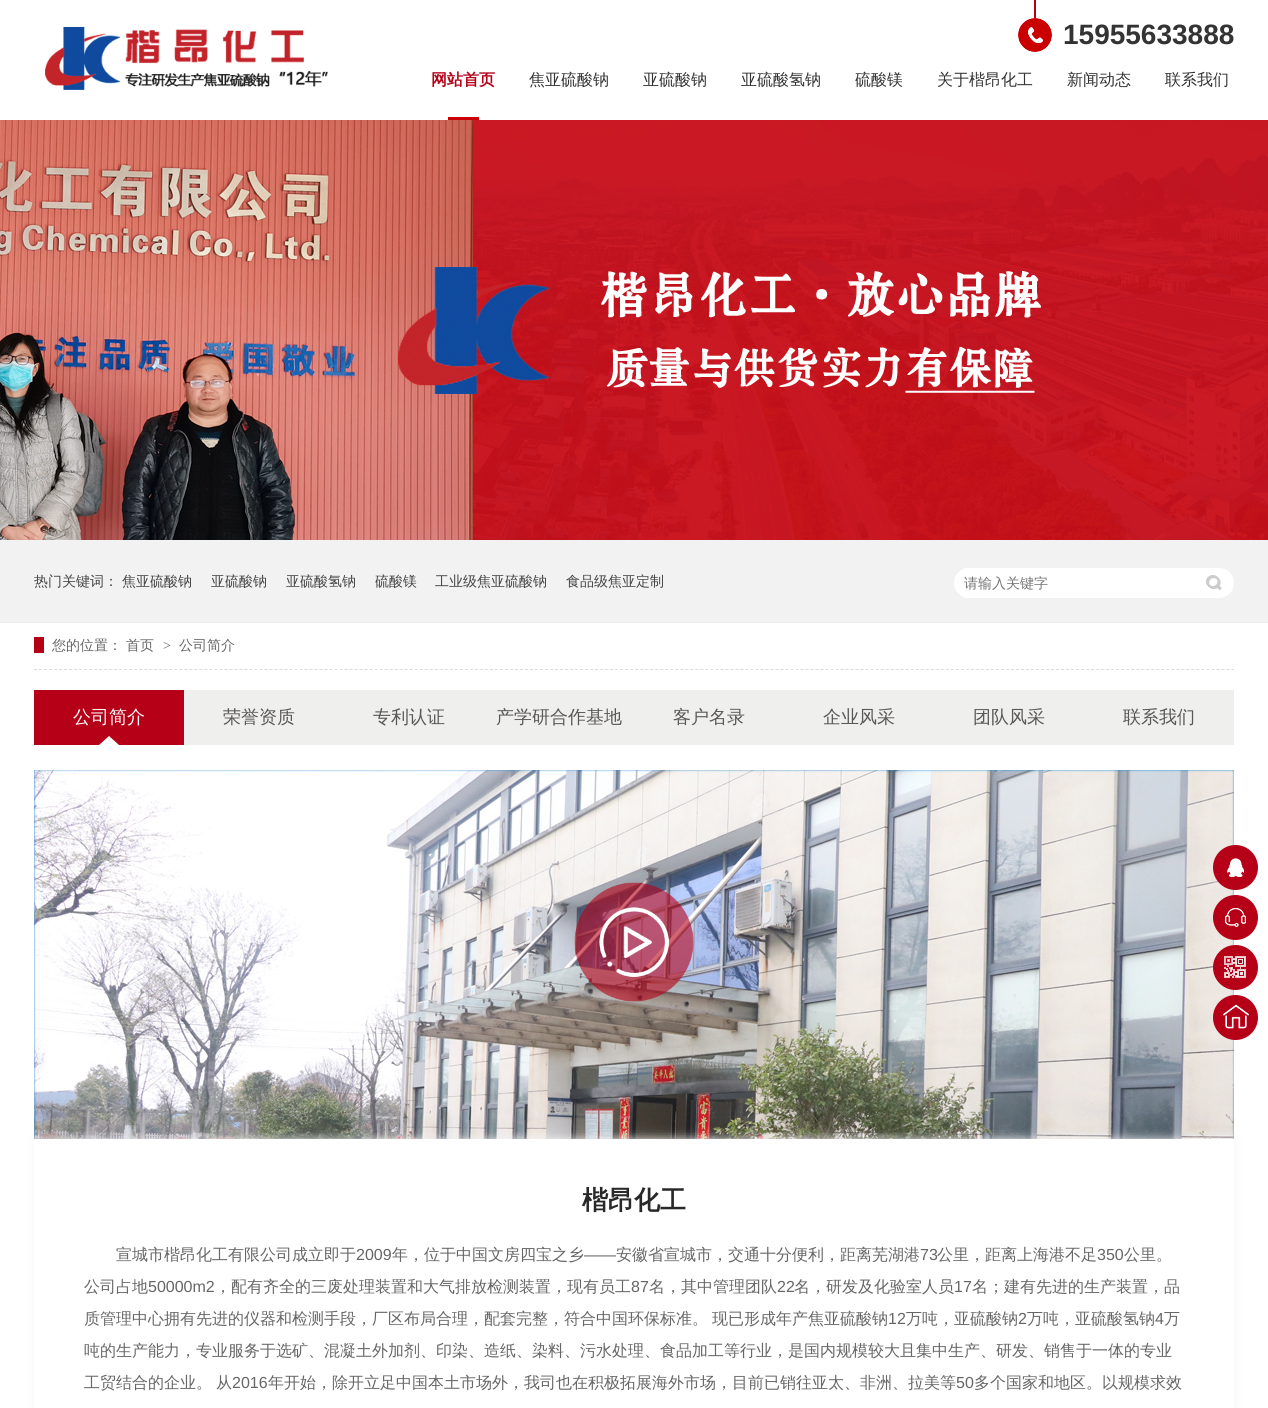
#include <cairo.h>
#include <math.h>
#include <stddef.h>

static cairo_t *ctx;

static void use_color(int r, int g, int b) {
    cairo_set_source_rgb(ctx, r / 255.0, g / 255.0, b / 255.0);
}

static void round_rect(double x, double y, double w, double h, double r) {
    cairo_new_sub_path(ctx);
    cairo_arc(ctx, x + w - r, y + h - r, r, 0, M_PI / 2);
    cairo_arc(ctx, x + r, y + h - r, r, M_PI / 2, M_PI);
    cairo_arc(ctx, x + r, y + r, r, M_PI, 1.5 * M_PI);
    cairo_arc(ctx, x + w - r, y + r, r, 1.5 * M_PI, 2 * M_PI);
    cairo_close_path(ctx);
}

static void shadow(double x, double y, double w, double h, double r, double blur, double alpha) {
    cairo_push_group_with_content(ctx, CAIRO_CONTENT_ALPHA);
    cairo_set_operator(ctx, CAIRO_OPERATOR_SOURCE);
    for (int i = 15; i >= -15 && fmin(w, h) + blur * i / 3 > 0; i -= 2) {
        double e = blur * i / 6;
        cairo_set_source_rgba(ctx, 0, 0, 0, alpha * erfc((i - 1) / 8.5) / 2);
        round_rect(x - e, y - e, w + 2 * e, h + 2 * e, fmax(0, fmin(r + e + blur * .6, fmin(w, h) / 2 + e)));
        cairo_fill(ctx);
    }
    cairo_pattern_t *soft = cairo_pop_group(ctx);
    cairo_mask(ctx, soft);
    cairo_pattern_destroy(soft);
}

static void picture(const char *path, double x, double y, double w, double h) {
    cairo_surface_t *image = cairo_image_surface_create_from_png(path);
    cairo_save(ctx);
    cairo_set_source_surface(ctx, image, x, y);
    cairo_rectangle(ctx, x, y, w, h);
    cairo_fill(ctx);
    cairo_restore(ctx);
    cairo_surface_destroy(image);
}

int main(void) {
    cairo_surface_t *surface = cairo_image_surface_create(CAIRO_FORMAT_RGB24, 1268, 1408);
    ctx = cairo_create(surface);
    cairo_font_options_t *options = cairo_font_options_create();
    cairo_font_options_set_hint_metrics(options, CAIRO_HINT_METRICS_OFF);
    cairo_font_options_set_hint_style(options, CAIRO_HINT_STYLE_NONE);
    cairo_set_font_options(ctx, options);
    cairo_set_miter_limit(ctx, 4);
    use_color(255, 255, 255);
    cairo_paint(ctx);
    picture("img1.png", 45, 27, 283, 63);
    use_color(182, 0, 23);
    cairo_rectangle(ctx, 1034, 0, 2, 18);
    cairo_fill(ctx);
    picture("img2.png", 1018, 18, 34, 34);
    cairo_select_font_face(ctx, "Liberation Sans", CAIRO_FONT_SLANT_NORMAL, CAIRO_FONT_WEIGHT_BOLD);
    cairo_set_font_size(ctx, 28);
    use_color(51, 51, 51);
    cairo_move_to(ctx, 1063, 44);
    cairo_show_text(ctx, "15955633888");
    use_color(202, 0, 0);
    cairo_rectangle(ctx, 448, 117, 31, 3);
    cairo_fill(ctx);
    cairo_select_font_face(ctx, "WenQuanYi Zen Hei", CAIRO_FONT_SLANT_NORMAL, CAIRO_FONT_WEIGHT_BOLD);
    cairo_set_font_size(ctx, 16);
    use_color(182, 0, 23);
    cairo_move_to(ctx, 431, 85);
    cairo_show_text(ctx, "网站首页");
    cairo_select_font_face(ctx, "WenQuanYi Zen Hei Medium", CAIRO_FONT_SLANT_NORMAL, CAIRO_FONT_WEIGHT_NORMAL);
    use_color(51, 51, 51);
    cairo_move_to(ctx, 529, 85);
    cairo_show_text(ctx, "焦亚硫酸钠");
    cairo_move_to(ctx, 643, 85);
    cairo_show_text(ctx, "亚硫酸钠");
    cairo_move_to(ctx, 741, 85);
    cairo_show_text(ctx, "亚硫酸氢钠");
    cairo_move_to(ctx, 855, 85);
    cairo_show_text(ctx, "硫酸镁");
    cairo_move_to(ctx, 937, 85);
    cairo_show_text(ctx, "关于楷昂化工");
    cairo_move_to(ctx, 1067, 85);
    cairo_show_text(ctx, "新闻动态");
    cairo_move_to(ctx, 1165, 85);
    cairo_show_text(ctx, "联系我们");
    picture("img3.png", 0, 120, 1268, 420);
    use_color(242, 242, 242);
    cairo_rectangle(ctx, 0, 540, 1268, 82);
    cairo_fill(ctx);
    use_color(238, 238, 238);
    cairo_rectangle(ctx, 0, 622, 1268, 1);
    cairo_fill(ctx);
    cairo_set_font_size(ctx, 14);
    use_color(68, 68, 68);
    cairo_move_to(ctx, 34, 586);
    cairo_show_text(ctx, "热门关键词：");
    cairo_move_to(ctx, 122, 586);
    cairo_show_text(ctx, "焦亚硫酸钠");
    cairo_move_to(ctx, 211, 586);
    cairo_show_text(ctx, "亚硫酸钠");
    cairo_move_to(ctx, 286, 586);
    cairo_show_text(ctx, "亚硫酸氢钠");
    cairo_move_to(ctx, 375, 586);
    cairo_show_text(ctx, "硫酸镁");
    cairo_move_to(ctx, 435, 586);
    cairo_show_text(ctx, "工业级焦亚硫酸钠");
    cairo_move_to(ctx, 566, 586);
    cairo_show_text(ctx, "食品级焦亚定制");
    use_color(255, 255, 255);
    round_rect(954, 568, 280, 30, 15);
    cairo_fill(ctx);
    cairo_rectangle(ctx, 964, 568, 3, 30);
    cairo_fill(ctx);
    use_color(117, 117, 117);
    cairo_move_to(ctx, 964, 588);
    cairo_show_text(ctx, "请输入关键字");
    picture("img4.png", 1206, 575, 16, 15);
    cairo_new_path(ctx);
    cairo_move_to(ctx, 34, 669.5);
    cairo_line_to(ctx, 1234, 669.5);
    use_color(220, 220, 220);
    cairo_set_line_width(ctx, 1);
    cairo_set_dash(ctx, (double[]){3, 2.01}, 2, 0);
    cairo_stroke(ctx);
    use_color(102, 102, 102);
    cairo_move_to(ctx, 52, 650);
    cairo_show_text(ctx, "您的位置：");
    use_color(182, 0, 23);
    cairo_rectangle(ctx, 34, 637, 10, 16);
    cairo_fill(ctx);
    use_color(102, 102, 102);
    cairo_move_to(ctx, 126, 650);
    cairo_show_text(ctx, "首页");
    cairo_select_font_face(ctx, "Liberation Serif", CAIRO_FONT_SLANT_NORMAL, CAIRO_FONT_WEIGHT_NORMAL);
    cairo_move_to(ctx, 163, 650);
    cairo_show_text(ctx, ">");
    cairo_select_font_face(ctx, "WenQuanYi Zen Hei Medium", CAIRO_FONT_SLANT_NORMAL, CAIRO_FONT_WEIGHT_NORMAL);
    cairo_move_to(ctx, 179, 650);
    cairo_show_text(ctx, "公司简介");
    use_color(182, 0, 23);
    cairo_rectangle(ctx, 34, 690, 150, 55);
    cairo_fill(ctx);
    picture("img5.png", 99, 736, 20, 9);
    cairo_set_font_size(ctx, 18);
    use_color(255, 255, 255);
    cairo_move_to(ctx, 73, 723);
    cairo_show_text(ctx, "公司简介");
    use_color(239, 239, 237);
    cairo_rectangle(ctx, 184, 690, 1050, 55);
    cairo_fill(ctx);
    use_color(89, 87, 87);
    cairo_move_to(ctx, 223, 723);
    cairo_show_text(ctx, "荣誉资质");
    cairo_move_to(ctx, 373, 723);
    cairo_show_text(ctx, "专利认证");
    cairo_move_to(ctx, 496, 723);
    cairo_show_text(ctx, "产学研合作基地");
    cairo_move_to(ctx, 673, 723);
    cairo_show_text(ctx, "客户名录");
    cairo_move_to(ctx, 823, 723);
    cairo_show_text(ctx, "企业风采");
    cairo_move_to(ctx, 973, 723);
    cairo_show_text(ctx, "团队风采");
    cairo_move_to(ctx, 1123, 723);
    cairo_show_text(ctx, "联系我们");
    picture("img6.png", 34, 770, 1200, 369);
    picture("img7.png", 574, 882, 120, 120);
    use_color(245, 245, 245);
    shadow(34, 1139, 1200, 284, 0, 5, 1);
    use_color(255, 255, 255);
    cairo_rectangle(ctx, 34, 1139, 1200, 269);
    cairo_fill(ctx);
    cairo_select_font_face(ctx, "WenQuanYi Zen Hei", CAIRO_FONT_SLANT_NORMAL, CAIRO_FONT_WEIGHT_BOLD);
    cairo_set_font_size(ctx, 26);
    use_color(40, 40, 40);
    cairo_move_to(ctx, 582, 1209);
    cairo_show_text(ctx, "楷昂化工");
    cairo_select_font_face(ctx, "WenQuanYi Zen Hei Medium", CAIRO_FONT_SLANT_NORMAL, CAIRO_FONT_WEIGHT_NORMAL);
    cairo_set_font_size(ctx, 16);
    use_color(102, 102, 102);
    cairo_move_to(ctx, 116, 1260);
    cairo_show_text(ctx, "宣城市楷昂化工有限公司成立即于");
    cairo_select_font_face(ctx, "Liberation Sans", CAIRO_FONT_SLANT_NORMAL, CAIRO_FONT_WEIGHT_NORMAL);
    cairo_move_to(ctx, 356, 1260);
    cairo_show_text(ctx, "2009");
    cairo_select_font_face(ctx, "WenQuanYi Zen Hei Medium", CAIRO_FONT_SLANT_NORMAL, CAIRO_FONT_WEIGHT_NORMAL);
    cairo_move_to(ctx, 392, 1260);
    cairo_show_text(ctx, "年，位于中国文房四宝之乡");
    cairo_select_font_face(ctx, "Liberation Sans", CAIRO_FONT_SLANT_NORMAL, CAIRO_FONT_WEIGHT_NORMAL);
    cairo_move_to(ctx, 584, 1260);
    cairo_show_text(ctx, "——");
    cairo_select_font_face(ctx, "WenQuanYi Zen Hei Medium", CAIRO_FONT_SLANT_NORMAL, CAIRO_FONT_WEIGHT_NORMAL);
    cairo_move_to(ctx, 616, 1260);
    cairo_show_text(ctx, "安徽省宣城市，交通十分便利，距离芜湖港");
    cairo_select_font_face(ctx, "Liberation Sans", CAIRO_FONT_SLANT_NORMAL, CAIRO_FONT_WEIGHT_NORMAL);
    cairo_move_to(ctx, 920, 1260);
    cairo_show_text(ctx, "73");
    cairo_select_font_face(ctx, "WenQuanYi Zen Hei Medium", CAIRO_FONT_SLANT_NORMAL, CAIRO_FONT_WEIGHT_NORMAL);
    cairo_move_to(ctx, 937, 1260);
    cairo_show_text(ctx, "公里，距离上海港不足");
    cairo_select_font_face(ctx, "Liberation Sans", CAIRO_FONT_SLANT_NORMAL, CAIRO_FONT_WEIGHT_NORMAL);
    cairo_move_to(ctx, 1097, 1260);
    cairo_show_text(ctx, "350");
    cairo_select_font_face(ctx, "WenQuanYi Zen Hei Medium", CAIRO_FONT_SLANT_NORMAL, CAIRO_FONT_WEIGHT_NORMAL);
    cairo_move_to(ctx, 1124, 1260);
    cairo_show_text(ctx, "公里。");
    cairo_move_to(ctx, 84, 1292);
    cairo_show_text(ctx, "公司占地");
    cairo_select_font_face(ctx, "Liberation Sans", CAIRO_FONT_SLANT_NORMAL, CAIRO_FONT_WEIGHT_NORMAL);
    cairo_move_to(ctx, 148, 1292);
    cairo_show_text(ctx, "50000m2");
    cairo_select_font_face(ctx, "WenQuanYi Zen Hei Medium", CAIRO_FONT_SLANT_NORMAL, CAIRO_FONT_WEIGHT_NORMAL);
    cairo_move_to(ctx, 215, 1292);
    cairo_show_text(ctx, "，配有齐全的三废处理装置和大气排放检测装置，现有员工");
    cairo_select_font_face(ctx, "Liberation Sans", CAIRO_FONT_SLANT_NORMAL, CAIRO_FONT_WEIGHT_NORMAL);
    cairo_move_to(ctx, 631, 1292);
    cairo_show_text(ctx, "87");
    cairo_select_font_face(ctx, "WenQuanYi Zen Hei Medium", CAIRO_FONT_SLANT_NORMAL, CAIRO_FONT_WEIGHT_NORMAL);
    cairo_move_to(ctx, 649, 1292);
    cairo_show_text(ctx, "名，其中管理团队");
    cairo_select_font_face(ctx, "Liberation Sans", CAIRO_FONT_SLANT_NORMAL, CAIRO_FONT_WEIGHT_NORMAL);
    cairo_move_to(ctx, 777, 1292);
    cairo_show_text(ctx, "22");
    cairo_select_font_face(ctx, "WenQuanYi Zen Hei Medium", CAIRO_FONT_SLANT_NORMAL, CAIRO_FONT_WEIGHT_NORMAL);
    cairo_move_to(ctx, 794, 1292);
    cairo_show_text(ctx, "名，研发及化验室人员");
    cairo_select_font_face(ctx, "Liberation Sans", CAIRO_FONT_SLANT_NORMAL, CAIRO_FONT_WEIGHT_NORMAL);
    cairo_move_to(ctx, 954, 1292);
    cairo_show_text(ctx, "17");
    cairo_select_font_face(ctx, "WenQuanYi Zen Hei Medium", CAIRO_FONT_SLANT_NORMAL, CAIRO_FONT_WEIGHT_NORMAL);
    cairo_move_to(ctx, 972, 1292);
    cairo_show_text(ctx, "名；建有先进的生产装置，品");
    cairo_move_to(ctx, 84, 1324);
    cairo_show_text(ctx, "质管理中心拥有先进的仪器和检测手段，厂区布局合理，配套完整，符合中国环保标准。");
    cairo_move_to(ctx, 712, 1324);
    cairo_show_text(ctx, "现已形成年产焦亚硫酸钠");
    cairo_select_font_face(ctx, "Liberation Sans", CAIRO_FONT_SLANT_NORMAL, CAIRO_FONT_WEIGHT_NORMAL);
    cairo_move_to(ctx, 888, 1324);
    cairo_show_text(ctx, "12");
    cairo_select_font_face(ctx, "WenQuanYi Zen Hei Medium", CAIRO_FONT_SLANT_NORMAL, CAIRO_FONT_WEIGHT_NORMAL);
    cairo_move_to(ctx, 906, 1324);
    cairo_show_text(ctx, "万吨，亚硫酸钠");
    cairo_select_font_face(ctx, "Liberation Sans", CAIRO_FONT_SLANT_NORMAL, CAIRO_FONT_WEIGHT_NORMAL);
    cairo_move_to(ctx, 1018, 1324);
    cairo_show_text(ctx, "2");
    cairo_select_font_face(ctx, "WenQuanYi Zen Hei Medium", CAIRO_FONT_SLANT_NORMAL, CAIRO_FONT_WEIGHT_NORMAL);
    cairo_move_to(ctx, 1027, 1324);
    cairo_show_text(ctx, "万吨，亚硫酸氢钠");
    cairo_select_font_face(ctx, "Liberation Sans", CAIRO_FONT_SLANT_NORMAL, CAIRO_FONT_WEIGHT_NORMAL);
    cairo_move_to(ctx, 1155, 1324);
    cairo_show_text(ctx, "4");
    cairo_select_font_face(ctx, "WenQuanYi Zen Hei Medium", CAIRO_FONT_SLANT_NORMAL, CAIRO_FONT_WEIGHT_NORMAL);
    cairo_move_to(ctx, 1164, 1324);
    cairo_show_text(ctx, "万");
    cairo_move_to(ctx, 84, 1356);
    cairo_show_text(ctx, "吨的生产能力，专业服务于选矿、混凝土外加剂、印染、造纸、染料、污水处理、食品加工等行业，是国内规模较大且集中生产、研发、销售于一体的专业");
    cairo_move_to(ctx, 84, 1388);
    cairo_show_text(ctx, "工贸结合的企业。");
    cairo_move_to(ctx, 216, 1388);
    cairo_show_text(ctx, "从");
    cairo_select_font_face(ctx, "Liberation Sans", CAIRO_FONT_SLANT_NORMAL, CAIRO_FONT_WEIGHT_NORMAL);
    cairo_move_to(ctx, 232, 1388);
    cairo_show_text(ctx, "2016");
    cairo_select_font_face(ctx, "WenQuanYi Zen Hei Medium", CAIRO_FONT_SLANT_NORMAL, CAIRO_FONT_WEIGHT_NORMAL);
    cairo_move_to(ctx, 268, 1388);
    cairo_show_text(ctx, "年开始，除开立足中国本土市场外，我司也在积极拓展海外市场，目前已销往亚太、非洲、拉美等");
    cairo_select_font_face(ctx, "Liberation Sans", CAIRO_FONT_SLANT_NORMAL, CAIRO_FONT_WEIGHT_NORMAL);
    cairo_move_to(ctx, 956, 1388);
    cairo_show_text(ctx, "50");
    cairo_select_font_face(ctx, "WenQuanYi Zen Hei Medium", CAIRO_FONT_SLANT_NORMAL, CAIRO_FONT_WEIGHT_NORMAL);
    cairo_move_to(ctx, 974, 1388);
    cairo_show_text(ctx, "多个国家和地区。以规模求效");
    use_color(182, 0, 23);
    cairo_new_path(ctx);
    cairo_arc(ctx, 1235.5, 867.5, 22.5, 0, 2 * M_PI);
    cairo_fill(ctx);
    picture("img8.png", 1227, 858, 17, 19);
    cairo_arc(ctx, 1235.5, 917.5, 22.5, 0, 2 * M_PI);
    cairo_fill(ctx);
    picture("img9.png", 1225, 908, 21, 19);
    cairo_arc(ctx, 1235.5, 967.5, 22.5, 0, 2 * M_PI);
    cairo_fill(ctx);
    picture("img10.png", 1224, 956, 22, 22);
    cairo_arc(ctx, 1235.5, 1017.5, 22.5, 0, 2 * M_PI);
    cairo_fill(ctx);
    picture("img11.png", 1223, 1004, 26, 25);
    cairo_surface_write_to_png(surface, "result.png");
    cairo_font_options_destroy(options);
    cairo_destroy(ctx);
    cairo_surface_destroy(surface);
    return 0;
}
